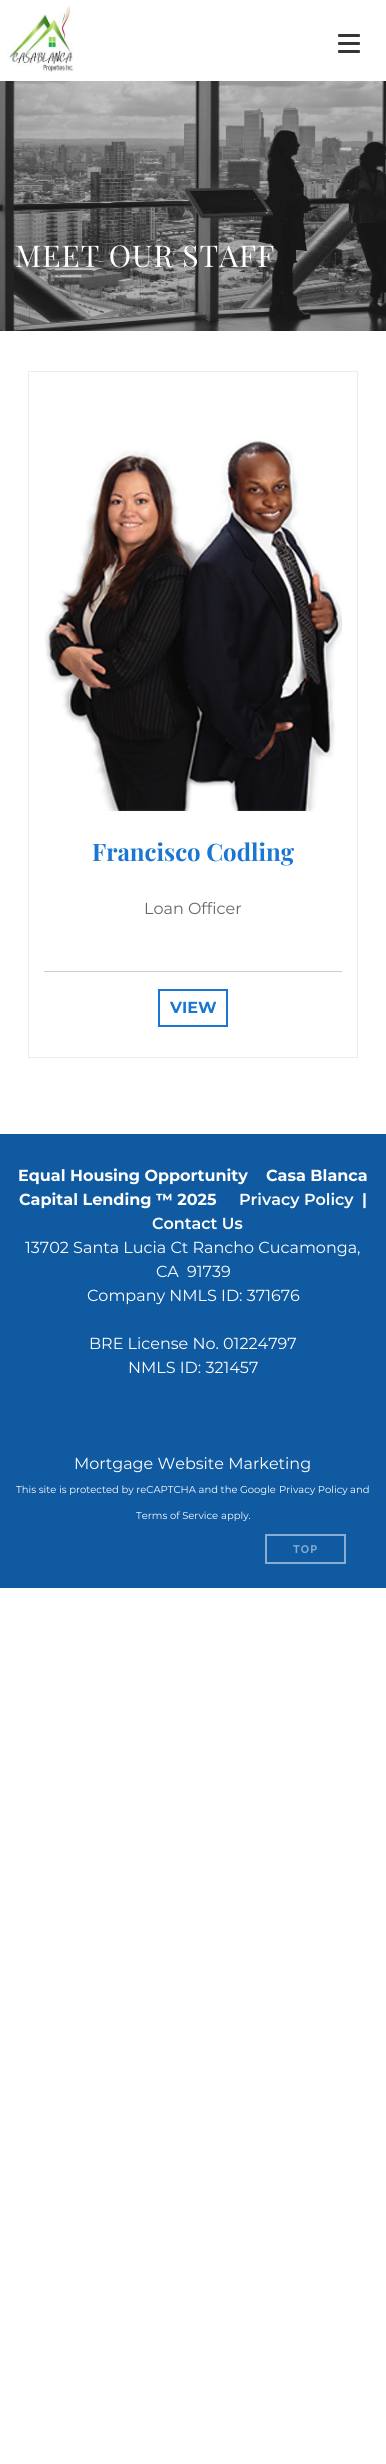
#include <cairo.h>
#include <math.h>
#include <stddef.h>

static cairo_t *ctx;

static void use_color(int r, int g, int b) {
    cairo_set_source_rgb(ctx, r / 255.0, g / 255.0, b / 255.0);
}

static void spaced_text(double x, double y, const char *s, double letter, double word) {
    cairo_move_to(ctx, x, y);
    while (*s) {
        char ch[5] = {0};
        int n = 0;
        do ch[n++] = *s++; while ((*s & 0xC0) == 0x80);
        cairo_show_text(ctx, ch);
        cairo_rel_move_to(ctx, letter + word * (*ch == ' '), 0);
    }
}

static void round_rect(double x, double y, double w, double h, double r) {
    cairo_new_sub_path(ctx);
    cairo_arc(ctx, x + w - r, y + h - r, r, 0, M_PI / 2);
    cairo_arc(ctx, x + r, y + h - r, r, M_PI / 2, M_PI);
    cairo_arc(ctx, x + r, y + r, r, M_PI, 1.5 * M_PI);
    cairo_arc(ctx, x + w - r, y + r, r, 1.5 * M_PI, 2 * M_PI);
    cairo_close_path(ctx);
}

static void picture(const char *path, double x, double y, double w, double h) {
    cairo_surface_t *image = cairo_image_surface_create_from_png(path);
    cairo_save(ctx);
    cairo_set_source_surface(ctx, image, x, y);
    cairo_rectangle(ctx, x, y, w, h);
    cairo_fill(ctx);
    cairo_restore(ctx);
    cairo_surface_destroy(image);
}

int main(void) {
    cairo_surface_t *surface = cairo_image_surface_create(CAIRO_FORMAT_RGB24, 386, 2464);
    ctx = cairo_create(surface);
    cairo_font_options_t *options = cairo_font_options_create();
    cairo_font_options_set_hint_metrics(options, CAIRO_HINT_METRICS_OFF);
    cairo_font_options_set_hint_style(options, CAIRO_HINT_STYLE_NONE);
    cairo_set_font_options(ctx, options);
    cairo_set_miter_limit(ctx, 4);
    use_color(255, 255, 255);
    cairo_paint(ctx);
    picture("img1.png", 6, 6, 68, 66);
    use_color(53, 53, 53);
    round_rect(338, 34, 22, 3, 1);
    cairo_fill(ctx);
    round_rect(338, 42, 22, 3, 1);
    cairo_fill(ctx);
    round_rect(338, 50, 22, 3, 1);
    cairo_fill(ctx);
    picture("img2.png", 0, 81, 386, 250);
    cairo_select_font_face(ctx, "Playfair Display", CAIRO_FONT_SLANT_NORMAL, CAIRO_FONT_WEIGHT_NORMAL);
    cairo_set_font_size(ctx, 30);
    use_color(255, 255, 255);
    spaced_text(15, 267, "MEET OUR STAFF", 1, 0);
    cairo_rectangle(ctx, 28.5, 371.5, 329, 686);
    use_color(237, 237, 237);
    cairo_set_line_width(ctx, 1);
    cairo_stroke(ctx);
    picture("img3.png", 44, 440, 298, 371);
    cairo_select_font_face(ctx, "Playfair Display", CAIRO_FONT_SLANT_NORMAL, CAIRO_FONT_WEIGHT_BOLD);
    cairo_set_font_size(ctx, 24);
    use_color(25, 118, 210);
    cairo_move_to(ctx, 92, 861);
    cairo_show_text(ctx, "Francisco Codling");
    cairo_select_font_face(ctx, "Montserrat", CAIRO_FONT_SLANT_NORMAL, CAIRO_FONT_WEIGHT_NORMAL);
    cairo_set_font_size(ctx, 16);
    use_color(102, 102, 102);
    cairo_move_to(ctx, 144, 914);
    cairo_show_text(ctx, "Loan Officer");
    use_color(204, 204, 204);
    cairo_rectangle(ctx, 44, 971, 298, 1);
    cairo_fill(ctx);
    cairo_rectangle(ctx, 159, 990, 68, 36);
    use_color(25, 118, 210);
    cairo_set_line_width(ctx, 2);
    cairo_stroke(ctx);
    cairo_select_font_face(ctx, "Montserrat", CAIRO_FONT_SLANT_NORMAL, CAIRO_FONT_WEIGHT_BOLD);
    cairo_move_to(ctx, 170, 1013);
    cairo_show_text(ctx, "VIEW");
    use_color(16, 90, 162);
    cairo_rectangle(ctx, 0, 1134, 386, 454);
    cairo_fill(ctx);
    use_color(255, 255, 255);
    cairo_move_to(ctx, 18, 1181);
    cairo_show_text(ctx, "Equal Housing Opportunity");
    cairo_move_to(ctx, 266, 1181);
    cairo_show_text(ctx, "Casa Blanca");
    cairo_move_to(ctx, 19, 1205);
    cairo_show_text(ctx, "Capital Lending ™ 2025");
    cairo_select_font_face(ctx, "Montserrat SemiBold", CAIRO_FONT_SLANT_NORMAL, CAIRO_FONT_WEIGHT_NORMAL);
    cairo_move_to(ctx, 239, 1205);
    cairo_show_text(ctx, "Privacy Policy");
    cairo_select_font_face(ctx, "Montserrat", CAIRO_FONT_SLANT_NORMAL, CAIRO_FONT_WEIGHT_BOLD);
    cairo_move_to(ctx, 362, 1205);
    cairo_show_text(ctx, "|");
    cairo_select_font_face(ctx, "Montserrat SemiBold", CAIRO_FONT_SLANT_NORMAL, CAIRO_FONT_WEIGHT_NORMAL);
    cairo_move_to(ctx, 152, 1229);
    cairo_show_text(ctx, "Contact Us");
    cairo_select_font_face(ctx, "Montserrat", CAIRO_FONT_SLANT_NORMAL, CAIRO_FONT_WEIGHT_NORMAL);
    cairo_move_to(ctx, 25, 1253);
    cairo_show_text(ctx, "13702 Santa Lucia Ct Rancho Cucamonga,");
    cairo_move_to(ctx, 156, 1277);
    cairo_show_text(ctx, "CA");
    cairo_move_to(ctx, 187, 1277);
    cairo_show_text(ctx, "91739");
    cairo_move_to(ctx, 87, 1301);
    cairo_show_text(ctx, "Company NMLS ID: 371676");
    cairo_move_to(ctx, 89, 1349);
    cairo_show_text(ctx, "BRE License No. 01224797");
    cairo_move_to(ctx, 128, 1373);
    cairo_show_text(ctx, "NMLS ID: 321457");
    cairo_move_to(ctx, 74, 1469);
    cairo_show_text(ctx, "Mortgage Website Marketing");
    cairo_set_font_size(ctx, 10);
    cairo_move_to(ctx, 16, 1493);
    cairo_show_text(ctx, "This site is protected by reCAPTCHA and the Google");
    cairo_move_to(ctx, 279, 1493);
    cairo_show_text(ctx, "Privacy Policy");
    cairo_move_to(ctx, 350, 1493);
    cairo_show_text(ctx, "and");
    cairo_move_to(ctx, 136, 1519);
    cairo_show_text(ctx, "Terms of Service");
    cairo_move_to(ctx, 221, 1519);
    cairo_show_text(ctx, "apply.");
    cairo_rectangle(ctx, 266, 1535, 79, 28);
    use_color(136, 173, 209);
    cairo_stroke(ctx);
    cairo_select_font_face(ctx, "Raleway", CAIRO_FONT_SLANT_NORMAL, CAIRO_FONT_WEIGHT_BOLD);
    cairo_set_font_size(ctx, 11);
    spaced_text(293, 1553, "TOP", 1, 0);
    cairo_surface_write_to_png(surface, "result.png");
    cairo_font_options_destroy(options);
    cairo_destroy(ctx);
    cairo_surface_destroy(surface);
    return 0;
}
